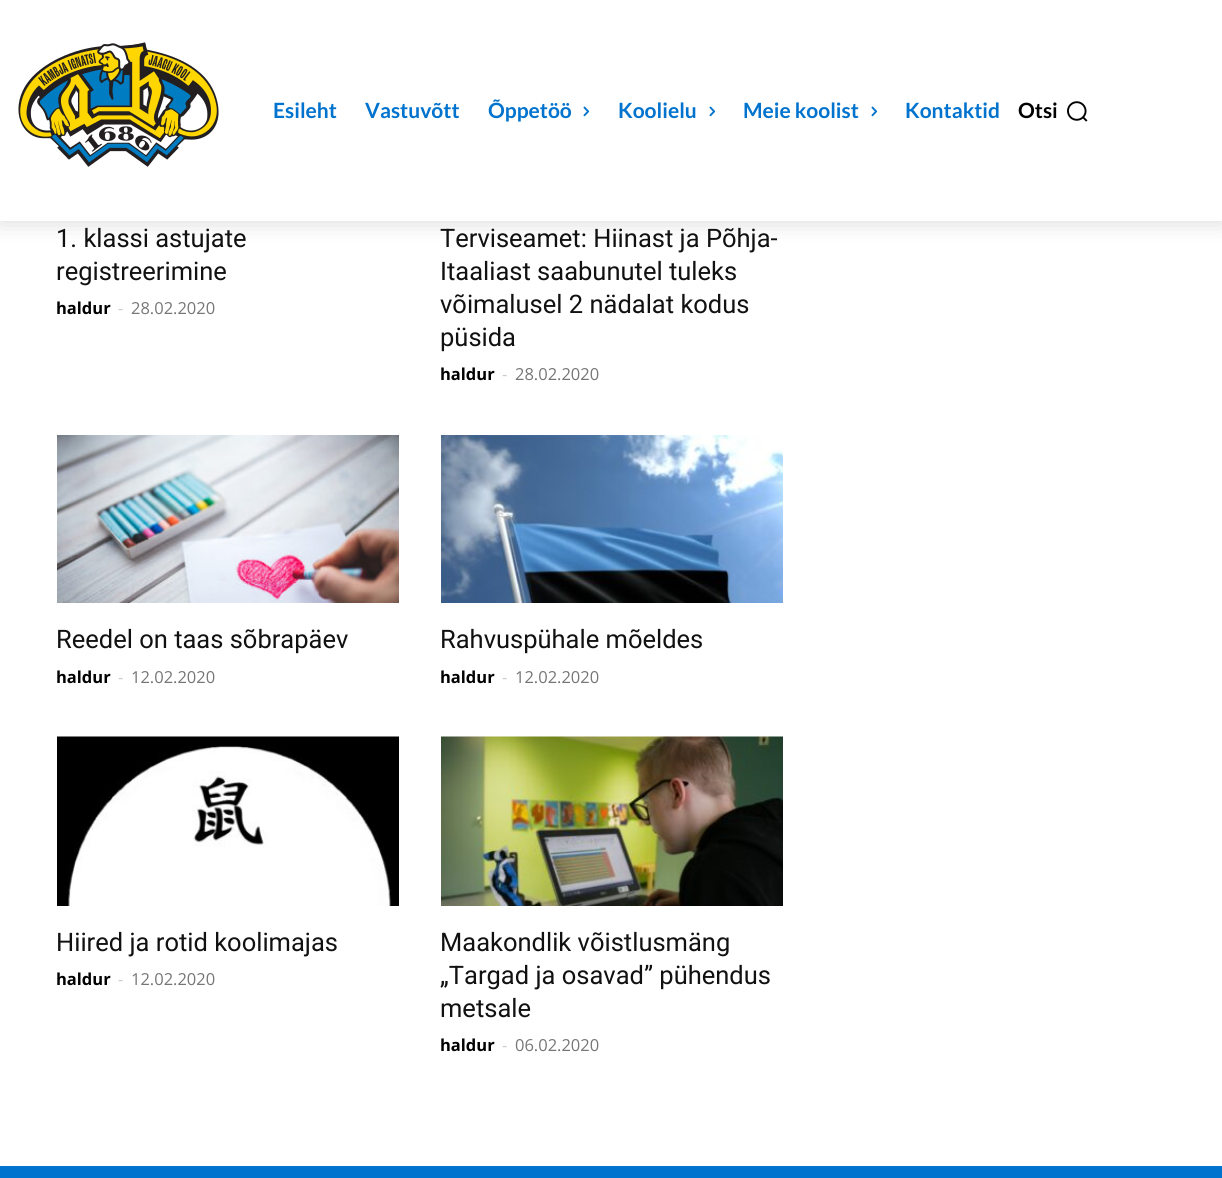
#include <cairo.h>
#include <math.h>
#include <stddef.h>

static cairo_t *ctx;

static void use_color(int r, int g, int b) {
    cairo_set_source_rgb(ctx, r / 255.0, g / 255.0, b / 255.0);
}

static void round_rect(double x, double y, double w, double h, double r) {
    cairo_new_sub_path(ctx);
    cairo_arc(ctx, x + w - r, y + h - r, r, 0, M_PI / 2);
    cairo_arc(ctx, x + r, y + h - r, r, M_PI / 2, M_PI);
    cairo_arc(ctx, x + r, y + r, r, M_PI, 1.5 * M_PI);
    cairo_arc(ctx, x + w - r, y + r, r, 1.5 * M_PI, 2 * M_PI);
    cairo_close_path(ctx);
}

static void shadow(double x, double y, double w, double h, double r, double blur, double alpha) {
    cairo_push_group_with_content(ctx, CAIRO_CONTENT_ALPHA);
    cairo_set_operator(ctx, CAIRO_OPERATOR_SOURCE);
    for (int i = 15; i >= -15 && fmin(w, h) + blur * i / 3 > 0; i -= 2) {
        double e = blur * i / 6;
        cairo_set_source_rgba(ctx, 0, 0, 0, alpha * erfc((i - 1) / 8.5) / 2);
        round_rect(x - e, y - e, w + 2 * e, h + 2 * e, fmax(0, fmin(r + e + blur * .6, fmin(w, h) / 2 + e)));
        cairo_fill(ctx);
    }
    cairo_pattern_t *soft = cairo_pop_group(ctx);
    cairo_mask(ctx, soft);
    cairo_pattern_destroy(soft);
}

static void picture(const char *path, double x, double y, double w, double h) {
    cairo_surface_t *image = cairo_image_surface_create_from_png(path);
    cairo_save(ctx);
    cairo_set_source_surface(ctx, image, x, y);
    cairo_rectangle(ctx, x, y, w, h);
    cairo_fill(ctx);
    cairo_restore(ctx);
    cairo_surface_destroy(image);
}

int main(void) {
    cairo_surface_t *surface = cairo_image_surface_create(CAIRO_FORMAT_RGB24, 1222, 1178);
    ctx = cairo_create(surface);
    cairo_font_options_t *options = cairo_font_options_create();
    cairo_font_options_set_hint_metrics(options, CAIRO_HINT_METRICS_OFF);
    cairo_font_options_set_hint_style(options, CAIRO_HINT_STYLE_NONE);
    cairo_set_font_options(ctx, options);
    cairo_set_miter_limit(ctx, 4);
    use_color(255, 255, 255);
    cairo_paint(ctx);
    use_color(0, 0, 0);
    shadow(0, 0, 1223, 221, 0, 12, 0.16);
    use_color(255, 255, 255);
    cairo_rectangle(ctx, 0, 0, 1222, 221);
    cairo_fill(ctx);
    picture("img1.png", 18, 42, 201, 125);
    cairo_select_font_face(ctx, "Lato", CAIRO_FONT_SLANT_NORMAL, CAIRO_FONT_WEIGHT_BOLD);
    cairo_set_font_size(ctx, 21);
    use_color(0, 115, 206);
    cairo_move_to(ctx, 273, 118);
    cairo_show_text(ctx, "Esileht");
    cairo_move_to(ctx, 365, 118);
    cairo_show_text(ctx, "Vastuvõtt");
    cairo_move_to(ctx, 488, 118);
    cairo_show_text(ctx, "Õppetöö");
    picture("img2.png", 583, 106, 7, 11);
    cairo_move_to(ctx, 618, 118);
    cairo_show_text(ctx, "Koolielu");
    picture("img2.png", 709, 106, 7, 11);
    cairo_move_to(ctx, 743, 118);
    cairo_show_text(ctx, "Meie koolist");
    picture("img2.png", 871, 106, 7, 11);
    cairo_move_to(ctx, 905, 118);
    cairo_show_text(ctx, "Kontaktid");
    use_color(0, 0, 0);
    cairo_move_to(ctx, 1018, 118);
    cairo_show_text(ctx, "Otsi");
    picture("img3.png", 1067, 101, 21, 21);
    cairo_select_font_face(ctx, "Roboto", CAIRO_FONT_SLANT_NORMAL, CAIRO_FONT_WEIGHT_NORMAL);
    cairo_set_font_size(ctx, 25.5);
    use_color(17, 17, 17);
    cairo_move_to(ctx, 56, 247);
    cairo_show_text(ctx, "1. klassi astujate");
    cairo_move_to(ctx, 56, 280);
    cairo_show_text(ctx, "registreerimine");
    cairo_select_font_face(ctx, "Open Sans", CAIRO_FONT_SLANT_NORMAL, CAIRO_FONT_WEIGHT_BOLD);
    cairo_set_font_size(ctx, 16.5);
    use_color(0, 0, 0);
    cairo_move_to(ctx, 56, 314);
    cairo_show_text(ctx, "haldur");
    cairo_select_font_face(ctx, "Open Sans", CAIRO_FONT_SLANT_NORMAL, CAIRO_FONT_WEIGHT_NORMAL);
    use_color(204, 204, 204);
    cairo_move_to(ctx, 118, 314);
    cairo_show_text(ctx, "-");
    use_color(118, 118, 118);
    cairo_move_to(ctx, 131, 314);
    cairo_show_text(ctx, "28.02.2020");
    cairo_select_font_face(ctx, "Roboto", CAIRO_FONT_SLANT_NORMAL, CAIRO_FONT_WEIGHT_NORMAL);
    cairo_set_font_size(ctx, 25.5);
    use_color(17, 17, 17);
    cairo_move_to(ctx, 440, 247);
    cairo_show_text(ctx, "Terviseamet: Hiinast ja Põhja-");
    cairo_move_to(ctx, 440, 280);
    cairo_show_text(ctx, "Itaaliast saabunutel tuleks");
    cairo_move_to(ctx, 440, 313);
    cairo_show_text(ctx, "võimalusel 2 nädalat kodus");
    cairo_move_to(ctx, 440, 346);
    cairo_show_text(ctx, "püsida");
    cairo_select_font_face(ctx, "Open Sans", CAIRO_FONT_SLANT_NORMAL, CAIRO_FONT_WEIGHT_BOLD);
    cairo_set_font_size(ctx, 16.5);
    use_color(0, 0, 0);
    cairo_move_to(ctx, 440, 380);
    cairo_show_text(ctx, "haldur");
    cairo_select_font_face(ctx, "Open Sans", CAIRO_FONT_SLANT_NORMAL, CAIRO_FONT_WEIGHT_NORMAL);
    use_color(204, 204, 204);
    cairo_move_to(ctx, 502, 380);
    cairo_show_text(ctx, "-");
    use_color(118, 118, 118);
    cairo_move_to(ctx, 515, 380);
    cairo_show_text(ctx, "28.02.2020");
    picture("img4.png", 57, 435, 342, 168);
    cairo_select_font_face(ctx, "Roboto", CAIRO_FONT_SLANT_NORMAL, CAIRO_FONT_WEIGHT_NORMAL);
    cairo_set_font_size(ctx, 25.5);
    use_color(17, 17, 17);
    cairo_move_to(ctx, 56, 648);
    cairo_show_text(ctx, "Reedel on taas sõbrapäev");
    cairo_select_font_face(ctx, "Open Sans", CAIRO_FONT_SLANT_NORMAL, CAIRO_FONT_WEIGHT_BOLD);
    cairo_set_font_size(ctx, 16.5);
    use_color(0, 0, 0);
    cairo_move_to(ctx, 56, 683);
    cairo_show_text(ctx, "haldur");
    cairo_select_font_face(ctx, "Open Sans", CAIRO_FONT_SLANT_NORMAL, CAIRO_FONT_WEIGHT_NORMAL);
    use_color(204, 204, 204);
    cairo_move_to(ctx, 118, 683);
    cairo_show_text(ctx, "-");
    use_color(118, 118, 118);
    cairo_move_to(ctx, 131, 683);
    cairo_show_text(ctx, "12.02.2020");
    picture("img5.png", 441, 435, 342, 168);
    cairo_select_font_face(ctx, "Roboto", CAIRO_FONT_SLANT_NORMAL, CAIRO_FONT_WEIGHT_NORMAL);
    cairo_set_font_size(ctx, 25.5);
    use_color(17, 17, 17);
    cairo_move_to(ctx, 440, 648);
    cairo_show_text(ctx, "Rahvuspühale mõeldes");
    cairo_select_font_face(ctx, "Open Sans", CAIRO_FONT_SLANT_NORMAL, CAIRO_FONT_WEIGHT_BOLD);
    cairo_set_font_size(ctx, 16.5);
    use_color(0, 0, 0);
    cairo_move_to(ctx, 440, 683);
    cairo_show_text(ctx, "haldur");
    cairo_select_font_face(ctx, "Open Sans", CAIRO_FONT_SLANT_NORMAL, CAIRO_FONT_WEIGHT_NORMAL);
    use_color(204, 204, 204);
    cairo_move_to(ctx, 502, 683);
    cairo_show_text(ctx, "-");
    use_color(118, 118, 118);
    cairo_move_to(ctx, 515, 683);
    cairo_show_text(ctx, "12.02.2020");
    picture("img6.png", 57, 736, 342, 170);
    cairo_select_font_face(ctx, "Roboto", CAIRO_FONT_SLANT_NORMAL, CAIRO_FONT_WEIGHT_NORMAL);
    cairo_set_font_size(ctx, 25.5);
    use_color(17, 17, 17);
    cairo_move_to(ctx, 56, 951);
    cairo_show_text(ctx, "Hiired ja rotid koolimajas");
    cairo_select_font_face(ctx, "Open Sans", CAIRO_FONT_SLANT_NORMAL, CAIRO_FONT_WEIGHT_BOLD);
    cairo_set_font_size(ctx, 16.5);
    use_color(0, 0, 0);
    cairo_move_to(ctx, 56, 985);
    cairo_show_text(ctx, "haldur");
    cairo_select_font_face(ctx, "Open Sans", CAIRO_FONT_SLANT_NORMAL, CAIRO_FONT_WEIGHT_NORMAL);
    use_color(204, 204, 204);
    cairo_move_to(ctx, 118, 985);
    cairo_show_text(ctx, "-");
    use_color(118, 118, 118);
    cairo_move_to(ctx, 131, 985);
    cairo_show_text(ctx, "12.02.2020");
    picture("img7.png", 441, 736, 342, 170);
    cairo_select_font_face(ctx, "Roboto", CAIRO_FONT_SLANT_NORMAL, CAIRO_FONT_WEIGHT_NORMAL);
    cairo_set_font_size(ctx, 25.5);
    use_color(17, 17, 17);
    cairo_move_to(ctx, 440, 951);
    cairo_show_text(ctx, "Maakondlik võistlusmäng");
    cairo_move_to(ctx, 440, 984);
    cairo_show_text(ctx, "„Targad ja osavad” pühendus");
    cairo_move_to(ctx, 440, 1017);
    cairo_show_text(ctx, "metsale");
    cairo_select_font_face(ctx, "Open Sans", CAIRO_FONT_SLANT_NORMAL, CAIRO_FONT_WEIGHT_BOLD);
    cairo_set_font_size(ctx, 16.5);
    use_color(0, 0, 0);
    cairo_move_to(ctx, 440, 1051);
    cairo_show_text(ctx, "haldur");
    cairo_select_font_face(ctx, "Open Sans", CAIRO_FONT_SLANT_NORMAL, CAIRO_FONT_WEIGHT_NORMAL);
    use_color(204, 204, 204);
    cairo_move_to(ctx, 502, 1051);
    cairo_show_text(ctx, "-");
    use_color(118, 118, 118);
    cairo_move_to(ctx, 515, 1051);
    cairo_show_text(ctx, "06.02.2020");
    use_color(0, 115, 206);
    cairo_rectangle(ctx, 0, 1166, 1222, 12);
    cairo_fill(ctx);
    cairo_surface_write_to_png(surface, "result.png");
    cairo_font_options_destroy(options);
    cairo_destroy(ctx);
    cairo_surface_destroy(surface);
    return 0;
}
